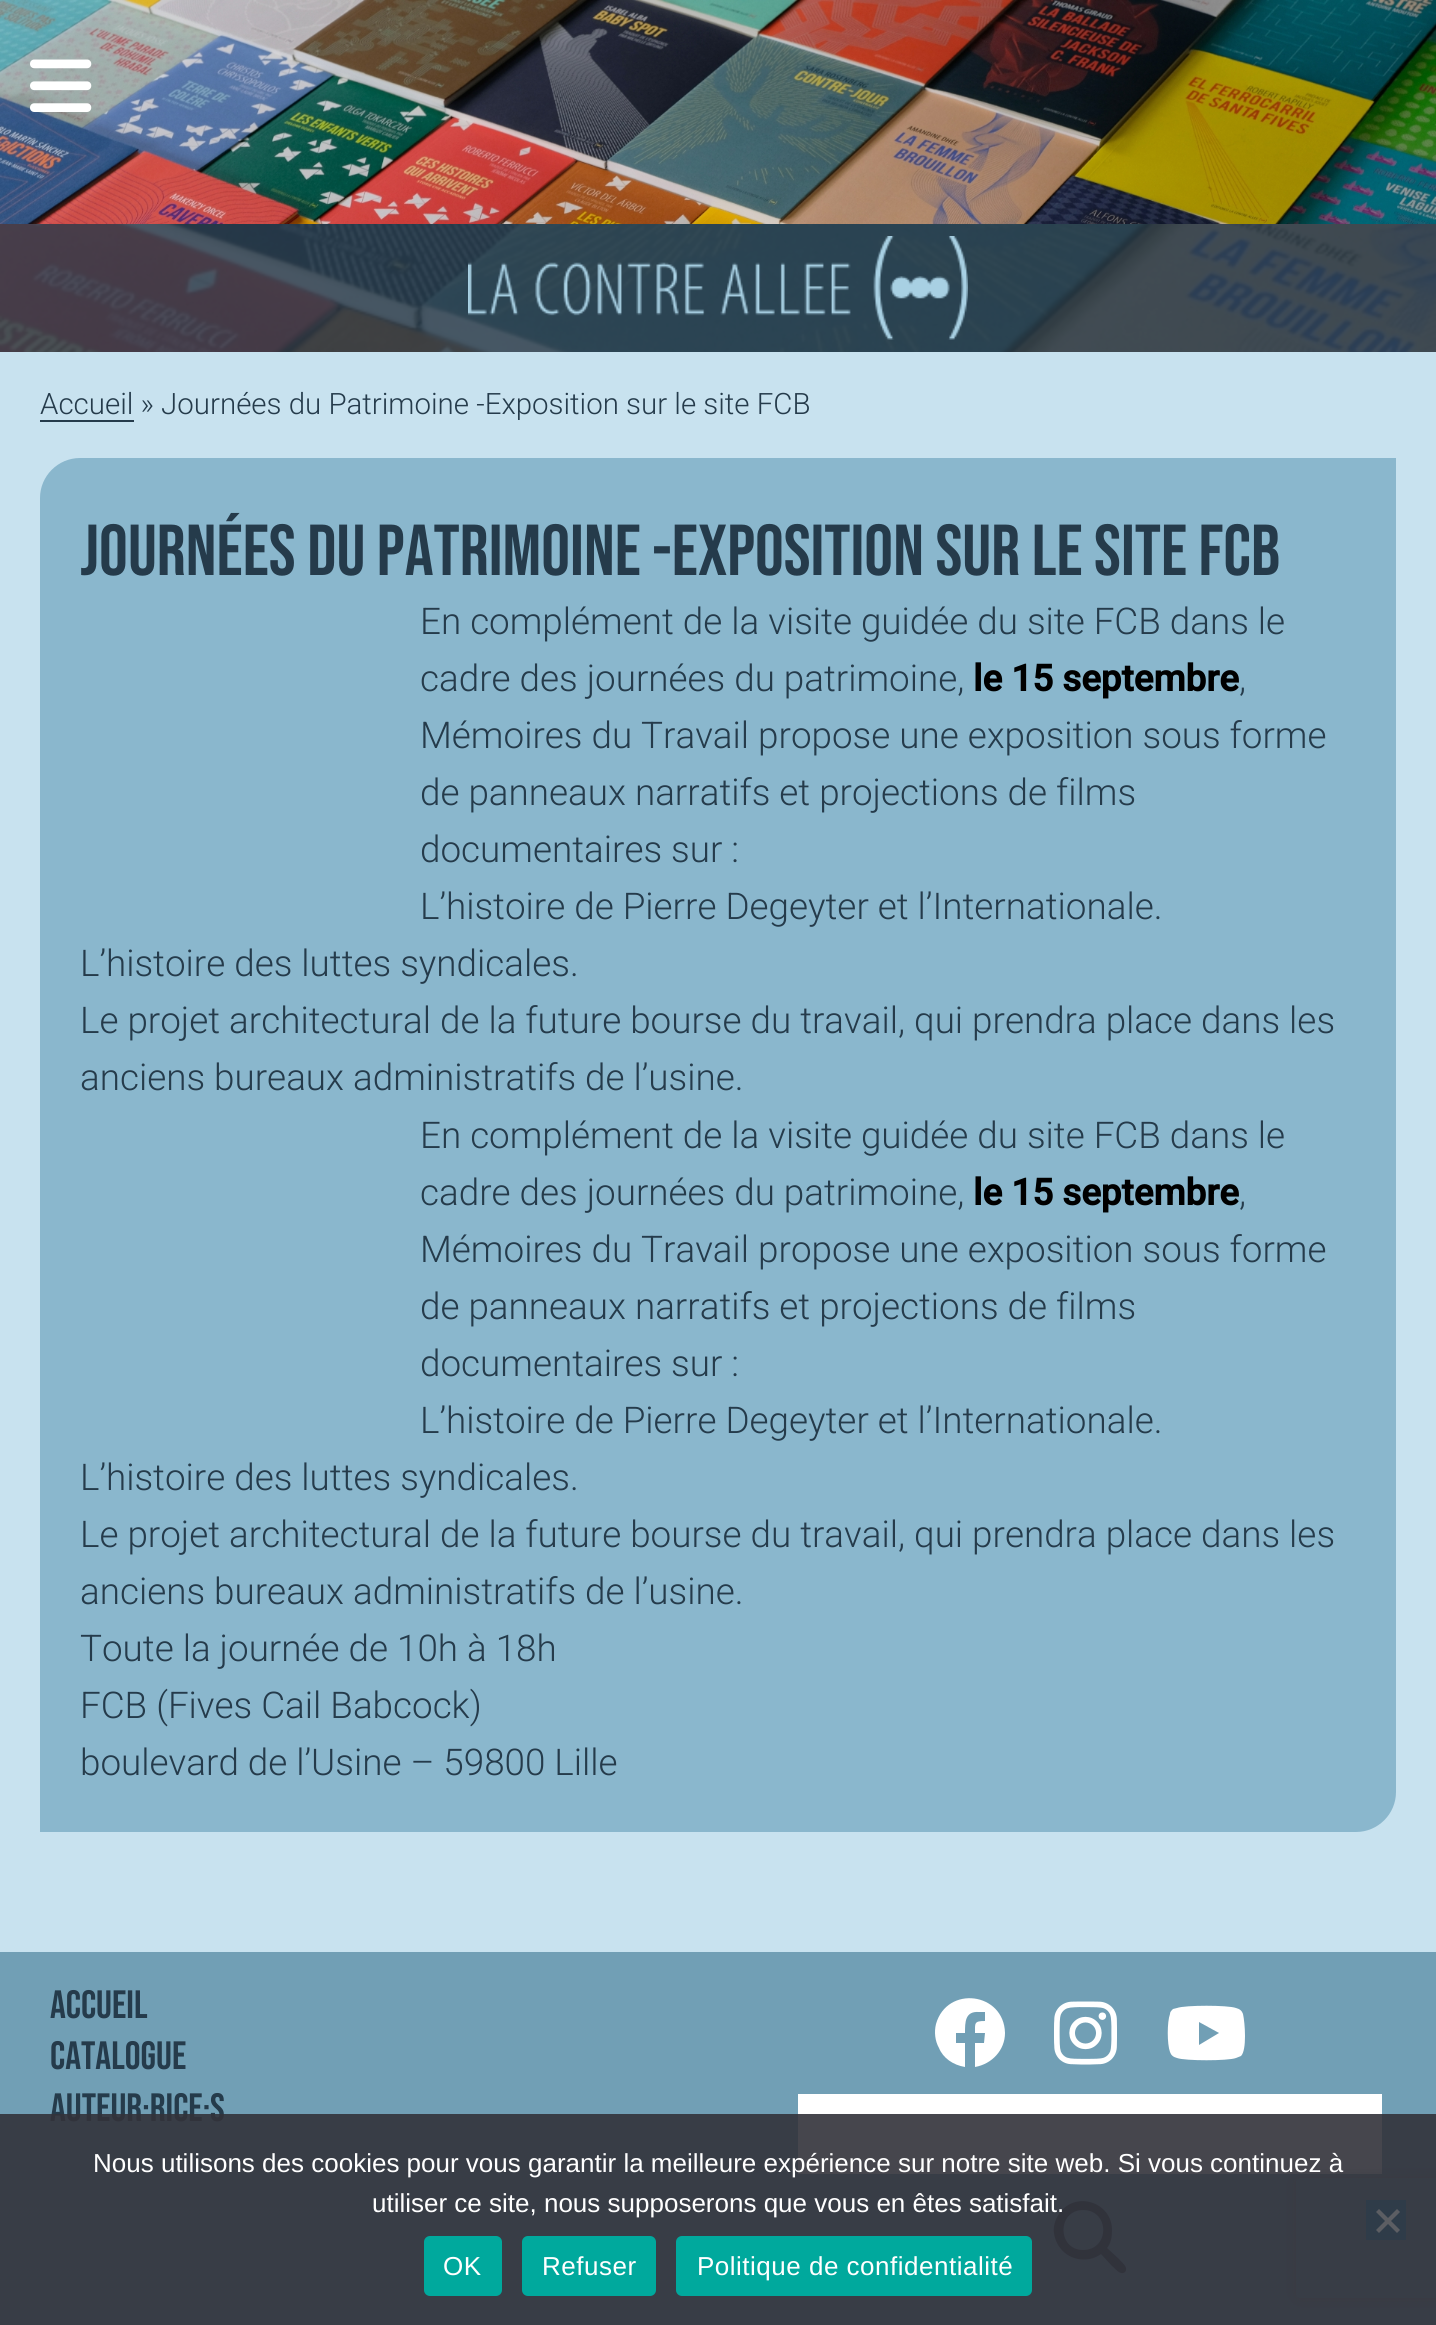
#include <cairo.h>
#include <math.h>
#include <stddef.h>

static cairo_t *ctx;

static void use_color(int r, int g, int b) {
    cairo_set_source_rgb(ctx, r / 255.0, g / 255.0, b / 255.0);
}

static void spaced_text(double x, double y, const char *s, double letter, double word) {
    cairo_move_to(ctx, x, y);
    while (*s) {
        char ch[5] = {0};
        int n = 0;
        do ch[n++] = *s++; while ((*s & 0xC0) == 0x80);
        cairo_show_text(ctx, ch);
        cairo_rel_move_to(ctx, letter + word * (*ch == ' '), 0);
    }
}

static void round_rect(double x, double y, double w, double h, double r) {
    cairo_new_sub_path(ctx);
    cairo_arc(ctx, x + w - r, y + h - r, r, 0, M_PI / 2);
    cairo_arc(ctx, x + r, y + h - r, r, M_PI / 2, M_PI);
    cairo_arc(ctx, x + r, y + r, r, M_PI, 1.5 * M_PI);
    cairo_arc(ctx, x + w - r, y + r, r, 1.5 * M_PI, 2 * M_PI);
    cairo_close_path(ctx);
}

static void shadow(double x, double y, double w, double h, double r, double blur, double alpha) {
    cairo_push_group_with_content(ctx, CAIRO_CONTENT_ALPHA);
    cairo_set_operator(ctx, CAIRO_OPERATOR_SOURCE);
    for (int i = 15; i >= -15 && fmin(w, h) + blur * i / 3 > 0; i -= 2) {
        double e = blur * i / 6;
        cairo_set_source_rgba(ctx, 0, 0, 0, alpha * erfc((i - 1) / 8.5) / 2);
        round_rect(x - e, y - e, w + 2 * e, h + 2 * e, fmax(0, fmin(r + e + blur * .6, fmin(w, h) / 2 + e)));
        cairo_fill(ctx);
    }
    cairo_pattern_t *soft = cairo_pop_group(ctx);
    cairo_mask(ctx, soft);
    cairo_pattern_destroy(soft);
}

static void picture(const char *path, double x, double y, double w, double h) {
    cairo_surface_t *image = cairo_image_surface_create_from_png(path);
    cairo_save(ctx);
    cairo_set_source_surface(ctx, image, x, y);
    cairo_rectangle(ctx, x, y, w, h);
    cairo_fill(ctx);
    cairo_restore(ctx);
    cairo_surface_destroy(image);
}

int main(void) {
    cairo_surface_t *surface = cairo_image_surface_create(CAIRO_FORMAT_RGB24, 1436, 2325);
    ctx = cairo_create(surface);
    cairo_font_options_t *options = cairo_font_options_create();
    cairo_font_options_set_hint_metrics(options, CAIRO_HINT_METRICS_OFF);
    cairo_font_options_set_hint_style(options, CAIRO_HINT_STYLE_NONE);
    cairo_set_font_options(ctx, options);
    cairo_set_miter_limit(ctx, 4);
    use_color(200, 226, 239);
    cairo_paint(ctx);
    picture("img1.png", 0, 224, 1436, 128);
    picture("img2.png", 0, 0, 1436, 224);
    cairo_set_source_rgba(ctx, 0.145, 0.231, 0.294, 0.8);
    cairo_rectangle(ctx, 0, 224, 1436, 128);
    cairo_fill(ctx);
    picture("img3.png", 468, 236, 500, 104);
    picture("img4.png", 30, 59, 62, 53);
    cairo_select_font_face(ctx, "Roboto Light", CAIRO_FONT_SLANT_NORMAL, CAIRO_FONT_WEIGHT_NORMAL);
    cairo_set_font_size(ctx, 29.45);
    use_color(37, 59, 75);
    cairo_move_to(ctx, 40, 414);
    cairo_show_text(ctx, "Accueil » Journées du Patrimoine -Exposition sur le site FCB");
    cairo_rectangle(ctx, 40, 420, 94, 2);
    cairo_fill(ctx);
    use_color(138, 183, 205);
    cairo_new_path(ctx);
    cairo_move_to(ctx, 80, 458);
    cairo_line_to(ctx, 1396, 458);
    cairo_line_to(ctx, 1396, 1792);
    cairo_curve_to(ctx, 1396, 1814, 1378, 1832, 1356, 1832);
    cairo_line_to(ctx, 40, 1832);
    cairo_line_to(ctx, 40, 498);
    cairo_curve_to(ctx, 40, 476, 58, 458, 80, 458);
    cairo_close_path(ctx);
    cairo_fill(ctx);
    cairo_select_font_face(ctx, "Bebas Neue", CAIRO_FONT_SLANT_NORMAL, CAIRO_FONT_WEIGHT_NORMAL);
    cairo_set_font_size(ctx, 72);
    use_color(37, 59, 75);
    cairo_move_to(ctx, 80, 575);
    cairo_show_text(ctx, "Journées du Patrimoine -Exposition sur le site FCB");
    cairo_select_font_face(ctx, "Roboto Light", CAIRO_FONT_SLANT_NORMAL, CAIRO_FONT_WEIGHT_NORMAL);
    cairo_set_font_size(ctx, 36.8);
    cairo_move_to(ctx, 420, 634);
    cairo_show_text(ctx, "En complément de la visite guidée du site FCB dans le");
    cairo_move_to(ctx, 420, 691);
    cairo_show_text(ctx, "cadre des journées du patrimoine,");
    cairo_select_font_face(ctx, "Roboto", CAIRO_FONT_SLANT_NORMAL, CAIRO_FONT_WEIGHT_BOLD);
    use_color(0, 0, 0);
    cairo_move_to(ctx, 973, 691);
    cairo_show_text(ctx, "le 15 septembre");
    cairo_select_font_face(ctx, "Roboto Light", CAIRO_FONT_SLANT_NORMAL, CAIRO_FONT_WEIGHT_NORMAL);
    use_color(37, 59, 75);
    cairo_move_to(ctx, 1239, 691);
    cairo_show_text(ctx, ",");
    cairo_move_to(ctx, 420, 748);
    cairo_show_text(ctx, "Mémoires du Travail propose une exposition sous forme");
    cairo_move_to(ctx, 420, 805);
    cairo_show_text(ctx, "de panneaux narratifs et projections de films");
    cairo_move_to(ctx, 420, 862);
    cairo_show_text(ctx, "documentaires sur :");
    cairo_move_to(ctx, 420, 919);
    cairo_show_text(ctx, "L’histoire de Pierre Degeyter et l’Internationale.");
    cairo_move_to(ctx, 80, 976);
    cairo_show_text(ctx, "L’histoire des luttes syndicales.");
    cairo_move_to(ctx, 80, 1033);
    cairo_show_text(ctx, "Le projet architectural de la future bourse du travail, qui prendra place dans les");
    cairo_move_to(ctx, 80, 1090);
    cairo_show_text(ctx, "anciens bureaux administratifs de l’usine.");
    cairo_move_to(ctx, 420, 1148);
    cairo_show_text(ctx, "En complément de la visite guidée du site FCB dans le");
    cairo_move_to(ctx, 420, 1205);
    cairo_show_text(ctx, "cadre des journées du patrimoine,");
    cairo_select_font_face(ctx, "Roboto", CAIRO_FONT_SLANT_NORMAL, CAIRO_FONT_WEIGHT_BOLD);
    use_color(0, 0, 0);
    cairo_move_to(ctx, 973, 1205);
    cairo_show_text(ctx, "le 15 septembre");
    cairo_select_font_face(ctx, "Roboto Light", CAIRO_FONT_SLANT_NORMAL, CAIRO_FONT_WEIGHT_NORMAL);
    use_color(37, 59, 75);
    cairo_move_to(ctx, 1239, 1205);
    cairo_show_text(ctx, ",");
    cairo_move_to(ctx, 420, 1262);
    cairo_show_text(ctx, "Mémoires du Travail propose une exposition sous forme");
    cairo_move_to(ctx, 420, 1319);
    cairo_show_text(ctx, "de panneaux narratifs et projections de films");
    cairo_move_to(ctx, 420, 1376);
    cairo_show_text(ctx, "documentaires sur :");
    cairo_move_to(ctx, 420, 1433);
    cairo_show_text(ctx, "L’histoire de Pierre Degeyter et l’Internationale.");
    cairo_move_to(ctx, 80, 1490);
    cairo_show_text(ctx, "L’histoire des luttes syndicales.");
    cairo_move_to(ctx, 80, 1547);
    cairo_show_text(ctx, "Le projet architectural de la future bourse du travail, qui prendra place dans les");
    cairo_move_to(ctx, 80, 1604);
    cairo_show_text(ctx, "anciens bureaux administratifs de l’usine.");
    cairo_move_to(ctx, 80, 1661);
    cairo_show_text(ctx, "Toute la journée de 10h à 18h");
    cairo_move_to(ctx, 80, 1718);
    cairo_show_text(ctx, "FCB (Fives Cail Babcock)");
    cairo_move_to(ctx, 80, 1775);
    cairo_show_text(ctx, "boulevard de l’Usine – 59800 Lille");
    use_color(113, 159, 181);
    cairo_rectangle(ctx, 0, 1952, 1436, 373);
    cairo_fill(ctx);
    cairo_select_font_face(ctx, "Bebas Neue", CAIRO_FONT_SLANT_NORMAL, CAIRO_FONT_WEIGHT_NORMAL);
    cairo_set_font_size(ctx, 39.5);
    use_color(37, 59, 75);
    cairo_move_to(ctx, 50, 2018);
    cairo_show_text(ctx, "Accueil");
    cairo_move_to(ctx, 50, 2069);
    cairo_show_text(ctx, "Catalogue");
    cairo_move_to(ctx, 50, 2121);
    cairo_show_text(ctx, "Auteur·rice·s");
    use_color(255, 255, 255);
    cairo_new_path(ctx);
    cairo_move_to(ctx, 1005, 2033);
    cairo_curve_to(ctx, 1004, 1992, 947, 1985, 936, 2024);
    cairo_curve_to(ctx, 934, 2032, 935, 2041, 939, 2048);
    cairo_curve_to(ctx, 943, 2058, 953, 2065, 965, 2067);
    cairo_line_to(ctx, 965, 2043);
    cairo_line_to(ctx, 956, 2043);
    cairo_line_to(ctx, 956, 2033);
    cairo_line_to(ctx, 965, 2033);
    cairo_curve_to(ctx, 965, 2022, 965, 2011, 979, 2012);
    cairo_line_to(ctx, 985, 2012);
    cairo_line_to(ctx, 985, 2021);
    cairo_curve_to(ctx, 974, 2021, 975, 2023, 975, 2033);
    cairo_line_to(ctx, 985, 2033);
    cairo_line_to(ctx, 984, 2043);
    cairo_line_to(ctx, 975, 2043);
    cairo_line_to(ctx, 975, 2067);
    cairo_curve_to(ctx, 992, 2064, 1005, 2050, 1005, 2033);
    cairo_close_path(ctx);
    cairo_fill(ctx);
    picture("img5.png", 1054, 2001, 63, 64);
    cairo_new_path(ctx);
    cairo_move_to(ctx, 1243, 2014);
    cairo_curve_to(ctx, 1242, 2011, 1240, 2009, 1236, 2008);
    cairo_curve_to(ctx, 1228, 2005, 1185, 2005, 1177, 2008);
    cairo_line_to(ctx, 1173, 2009);
    cairo_curve_to(ctx, 1171, 2011, 1170, 2012, 1170, 2014);
    cairo_curve_to(ctx, 1167, 2022, 1167, 2044, 1170, 2052);
    cairo_curve_to(ctx, 1171, 2055, 1173, 2057, 1177, 2058);
    cairo_curve_to(ctx, 1185, 2061, 1228, 2061, 1236, 2058);
    cairo_line_to(ctx, 1241, 2056);
    cairo_curve_to(ctx, 1247, 2050, 1245, 2023, 1243, 2014);
    cairo_close_path(ctx);
    cairo_move_to(ctx, 1199, 2045);
    cairo_line_to(ctx, 1199, 2022);
    cairo_line_to(ctx, 1219, 2033);
    cairo_close_path(ctx);
    cairo_fill(ctx);
    cairo_rectangle(ctx, 798, 2094, 584, 80);
    cairo_fill(ctx);
    use_color(37, 59, 75);
    cairo_new_path(ctx);
    cairo_move_to(ctx, 1112, 2230);
    cairo_curve_to(ctx, 1112, 2237, 1111, 2243, 1107, 2248);
    cairo_line_to(ctx, 1119, 2259);
    cairo_curve_to(ctx, 1121, 2262, 1129, 2267, 1125, 2272);
    cairo_curve_to(ctx, 1120, 2276, 1115, 2268, 1112, 2266);
    cairo_line_to(ctx, 1101, 2254);
    cairo_curve_to(ctx, 1090, 2262, 1075, 2261, 1065, 2253);
    cairo_curve_to(ctx, 1059, 2248, 1055, 2241, 1054, 2233);
    cairo_curve_to(ctx, 1053, 2227, 1055, 2220, 1059, 2214);
    cairo_curve_to(ctx, 1075, 2190, 1112, 2202, 1112, 2230);
    cairo_close_path(ctx);
    cairo_move_to(ctx, 1083, 2250);
    cairo_curve_to(ctx, 1110, 2250, 1110, 2210, 1083, 2210);
    cairo_curve_to(ctx, 1057, 2210, 1057, 2250, 1083, 2250);
    cairo_close_path(ctx);
    cairo_fill(ctx);
    cairo_save(ctx);
    cairo_set_fill_rule(ctx, CAIRO_FILL_RULE_EVEN_ODD);
    cairo_new_path(ctx);
    cairo_move_to(ctx, 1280, 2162);
    cairo_line_to(ctx, 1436, 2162);
    cairo_line_to(ctx, 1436, 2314);
    cairo_line_to(ctx, 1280, 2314);
    cairo_close_path(ctx);
    cairo_move_to(ctx, 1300, 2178);
    cairo_line_to(ctx, 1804, 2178);
    cairo_curve_to(ctx, 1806, 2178, 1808, 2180, 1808, 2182);
    cairo_line_to(ctx, 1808, 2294);
    cairo_curve_to(ctx, 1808, 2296, 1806, 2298, 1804, 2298);
    cairo_line_to(ctx, 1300, 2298);
    cairo_curve_to(ctx, 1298, 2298, 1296, 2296, 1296, 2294);
    cairo_line_to(ctx, 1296, 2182);
    cairo_curve_to(ctx, 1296, 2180, 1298, 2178, 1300, 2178);
    cairo_close_path(ctx);
    cairo_clip(ctx);
    use_color(128, 128, 128);
    shadow(1296, 2178, 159, 120, 4, 5, 1);
    cairo_restore(ctx);
    cairo_set_source_rgba(ctx, 0.196, 0.196, 0.227, 0.9);
    cairo_rectangle(ctx, 0, 2114, 1436, 211);
    cairo_fill(ctx);
    cairo_select_font_face(ctx, "Liberation Sans", CAIRO_FONT_SLANT_NORMAL, CAIRO_FONT_WEIGHT_NORMAL);
    cairo_set_font_size(ctx, 26);
    use_color(255, 255, 255);
    cairo_move_to(ctx, 93, 2172);
    cairo_show_text(ctx, "Nous utilisons des cookies pour vous garantir la meilleure expérience sur notre site web. Si vous continuez à");
    cairo_move_to(ctx, 372, 2212);
    cairo_show_text(ctx, "utiliser ce site, nous supposerons que vous en êtes satisfait.");
    use_color(47, 60, 73);
    cairo_rectangle(ctx, 1366, 2200, 40, 40);
    cairo_fill(ctx);
    use_color(92, 94, 99);
    cairo_new_path(ctx);
    cairo_move_to(ctx, 1397, 2209);
    cairo_line_to(ctx, 1400, 2212);
    cairo_line_to(ctx, 1379, 2233);
    cairo_line_to(ctx, 1376, 2230);
    cairo_close_path(ctx);
    cairo_fill(ctx);
    cairo_new_path(ctx);
    cairo_move_to(ctx, 1376, 2212);
    cairo_line_to(ctx, 1379, 2209);
    cairo_line_to(ctx, 1400, 2230);
    cairo_line_to(ctx, 1397, 2233);
    cairo_close_path(ctx);
    cairo_fill(ctx);
    use_color(0, 169, 157);
    round_rect(424, 2236, 78, 60, 6);
    cairo_fill(ctx);
    use_color(255, 255, 255);
    spaced_text(443, 2275, "OK", 0.5, 0);
    use_color(0, 169, 157);
    round_rect(522, 2236, 134, 60, 6);
    cairo_fill(ctx);
    use_color(255, 255, 255);
    spaced_text(542, 2275, "Refuser", 0.5, 0);
    use_color(0, 169, 157);
    round_rect(676, 2236, 356, 60, 6);
    cairo_fill(ctx);
    use_color(255, 255, 255);
    spaced_text(697, 2275, "Politique de confidentialité", 0.5, 0);
    cairo_surface_write_to_png(surface, "result.png");
    cairo_font_options_destroy(options);
    cairo_destroy(ctx);
    cairo_surface_destroy(surface);
    return 0;
}
